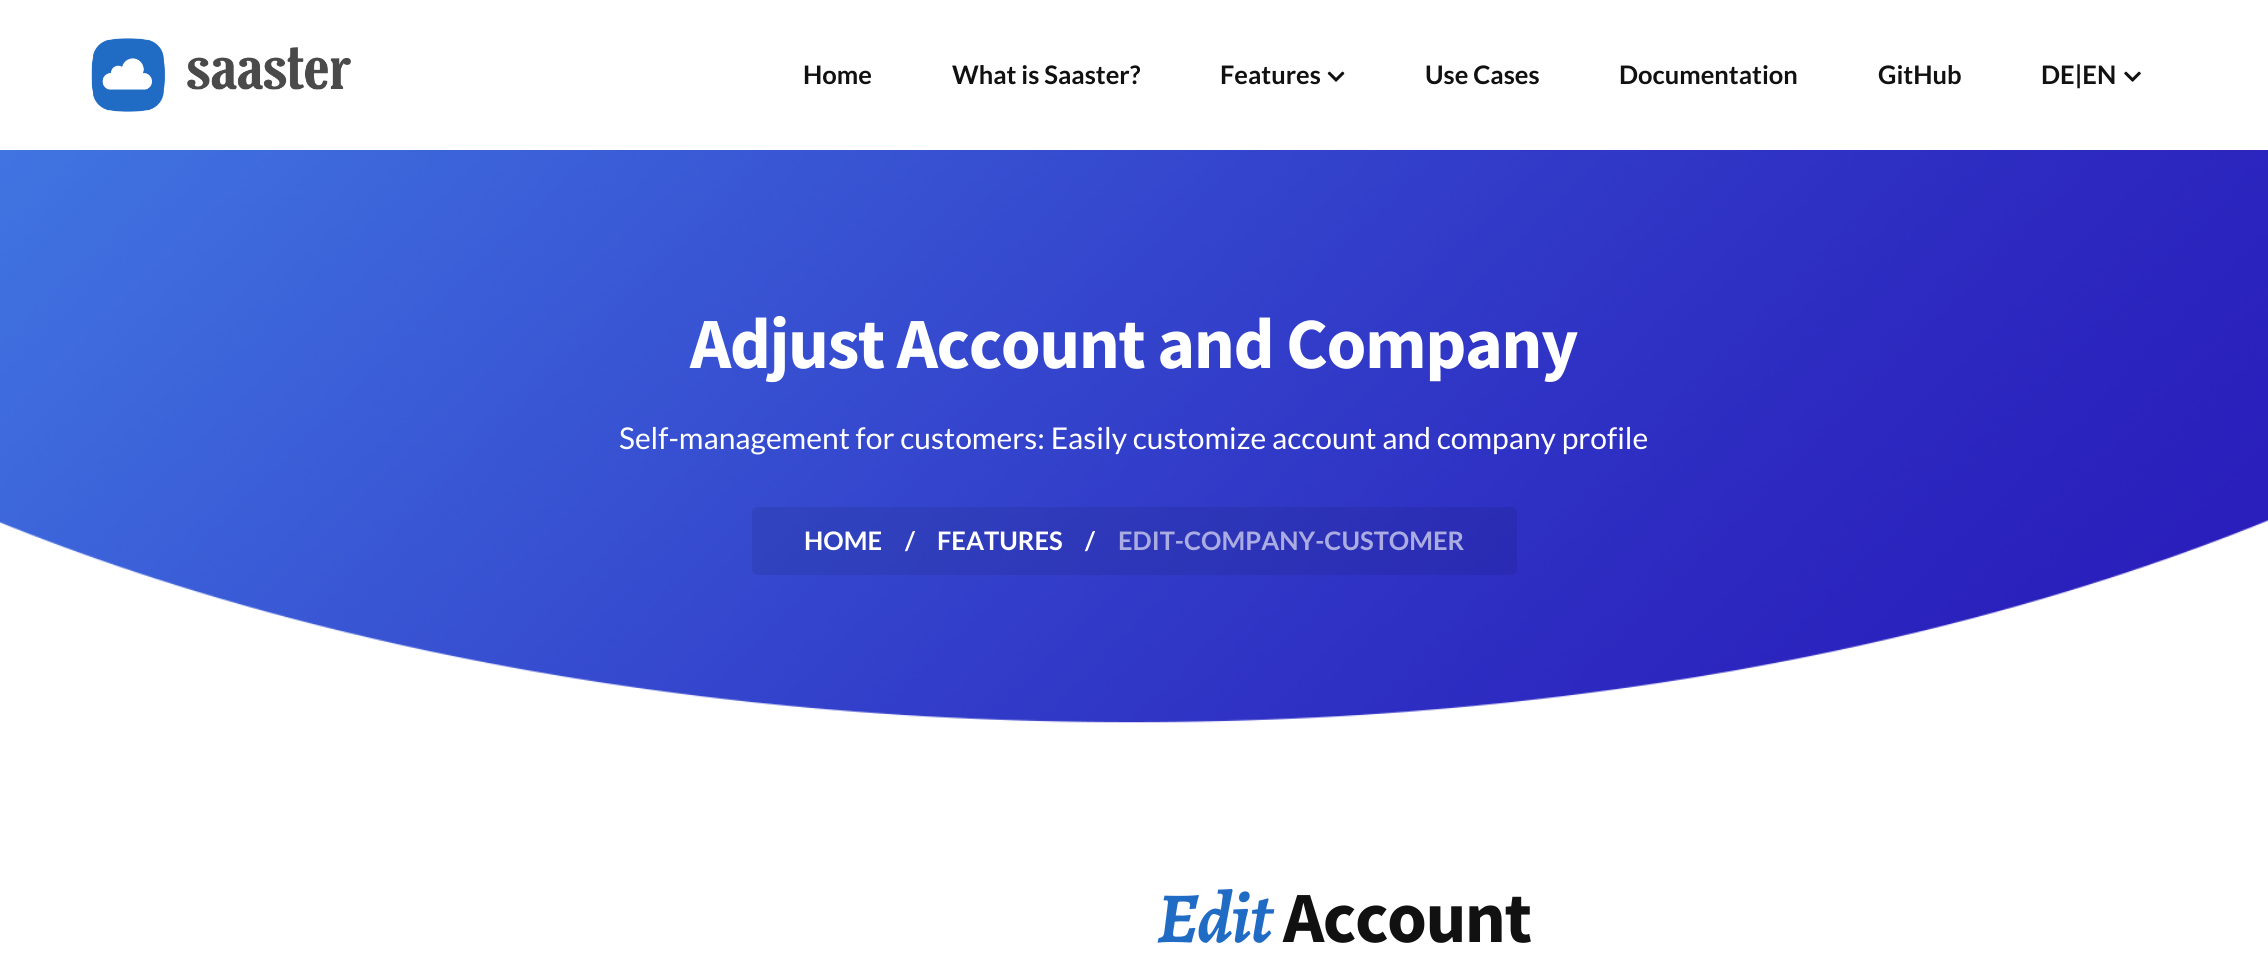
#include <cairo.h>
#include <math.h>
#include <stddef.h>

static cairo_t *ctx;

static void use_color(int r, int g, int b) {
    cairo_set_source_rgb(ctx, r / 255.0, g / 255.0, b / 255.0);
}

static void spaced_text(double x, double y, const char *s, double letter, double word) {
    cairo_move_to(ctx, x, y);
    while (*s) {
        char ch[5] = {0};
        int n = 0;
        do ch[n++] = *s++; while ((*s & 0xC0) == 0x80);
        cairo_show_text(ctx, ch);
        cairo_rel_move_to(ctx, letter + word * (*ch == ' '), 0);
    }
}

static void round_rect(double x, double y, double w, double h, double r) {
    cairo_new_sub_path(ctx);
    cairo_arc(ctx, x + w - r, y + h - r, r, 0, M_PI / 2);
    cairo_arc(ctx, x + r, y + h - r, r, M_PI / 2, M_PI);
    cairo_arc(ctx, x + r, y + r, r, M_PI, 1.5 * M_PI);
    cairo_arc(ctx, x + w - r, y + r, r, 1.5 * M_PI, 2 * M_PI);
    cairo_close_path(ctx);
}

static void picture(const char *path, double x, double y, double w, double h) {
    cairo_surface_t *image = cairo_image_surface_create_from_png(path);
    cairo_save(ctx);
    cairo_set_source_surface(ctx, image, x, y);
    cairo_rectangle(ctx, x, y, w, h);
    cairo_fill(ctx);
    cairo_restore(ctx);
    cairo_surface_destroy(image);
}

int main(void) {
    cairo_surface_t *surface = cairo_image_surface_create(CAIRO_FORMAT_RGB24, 2268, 970);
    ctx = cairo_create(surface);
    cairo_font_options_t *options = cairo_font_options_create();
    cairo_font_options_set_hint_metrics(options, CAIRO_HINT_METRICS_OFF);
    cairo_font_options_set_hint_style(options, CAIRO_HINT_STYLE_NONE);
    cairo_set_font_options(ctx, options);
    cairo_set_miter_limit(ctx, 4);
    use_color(255, 255, 255);
    cairo_paint(ctx);
    picture("img1.png", 91, 38, 260, 74);
    cairo_select_font_face(ctx, "Lato", CAIRO_FONT_SLANT_NORMAL, CAIRO_FONT_WEIGHT_BOLD);
    cairo_set_font_size(ctx, 25.5);
    use_color(17, 17, 17);
    cairo_move_to(ctx, 803, 84);
    cairo_show_text(ctx, "Home");
    cairo_move_to(ctx, 952, 84);
    cairo_show_text(ctx, "What is Saaster?");
    cairo_move_to(ctx, 1220, 84);
    cairo_show_text(ctx, "Features");
    picture("img2.png", 1327, 71, 18, 11);
    cairo_move_to(ctx, 1425, 84);
    cairo_show_text(ctx, "Use Cases");
    cairo_move_to(ctx, 1619, 84);
    cairo_show_text(ctx, "Documentation");
    cairo_move_to(ctx, 1878, 84);
    cairo_show_text(ctx, "GitHub");
    cairo_move_to(ctx, 2041, 84);
    cairo_show_text(ctx, "DE|EN");
    picture("img3.png", 2124, 71, 17, 11);
    picture("img4.png", 0, 150, 2268, 573);
    cairo_select_font_face(ctx, "Source Sans Pro", CAIRO_FONT_SLANT_NORMAL, CAIRO_FONT_WEIGHT_BOLD);
    cairo_set_font_size(ctx, 72);
    use_color(255, 255, 255);
    spaced_text(690, 368, "Adjust Account and Company", -1.5, 0);
    cairo_select_font_face(ctx, "Lato", CAIRO_FONT_SLANT_NORMAL, CAIRO_FONT_WEIGHT_NORMAL);
    cairo_set_font_size(ctx, 30);
    cairo_move_to(ctx, 619, 449);
    cairo_show_text(ctx, "Self-management for customers: Easily customize account and company profile");
    cairo_set_source_rgba(ctx, 0, 0, 0, 0.08);
    round_rect(752, 507, 765, 68, 6);
    cairo_fill(ctx);
    cairo_select_font_face(ctx, "Lato", CAIRO_FONT_SLANT_NORMAL, CAIRO_FONT_WEIGHT_BOLD);
    cairo_set_font_size(ctx, 25.5);
    use_color(255, 255, 255);
    cairo_move_to(ctx, 804, 550);
    cairo_show_text(ctx, "HOME");
    cairo_move_to(ctx, 905, 550);
    cairo_show_text(ctx, "/");
    cairo_move_to(ctx, 937, 550);
    cairo_show_text(ctx, "FEATURES");
    cairo_move_to(ctx, 1085, 550);
    cairo_show_text(ctx, "/");
    use_color(171, 173, 226);
    cairo_move_to(ctx, 1118, 550);
    cairo_show_text(ctx, "EDIT-COMPANY-CUSTOMER");
    cairo_select_font_face(ctx, "Alegreya", CAIRO_FONT_SLANT_ITALIC, CAIRO_FONT_WEIGHT_BOLD);
    cairo_set_font_size(ctx, 72);
    use_color(32, 107, 196);
    spaced_text(1157, 942, "Edit", -1.5, 0);
    cairo_select_font_face(ctx, "Source Sans Pro", CAIRO_FONT_SLANT_NORMAL, CAIRO_FONT_WEIGHT_BOLD);
    use_color(17, 17, 17);
    spaced_text(1283, 942, "Account", -1.5, 0);
    cairo_surface_write_to_png(surface, "result.png");
    cairo_font_options_destroy(options);
    cairo_destroy(ctx);
    cairo_surface_destroy(surface);
    return 0;
}
